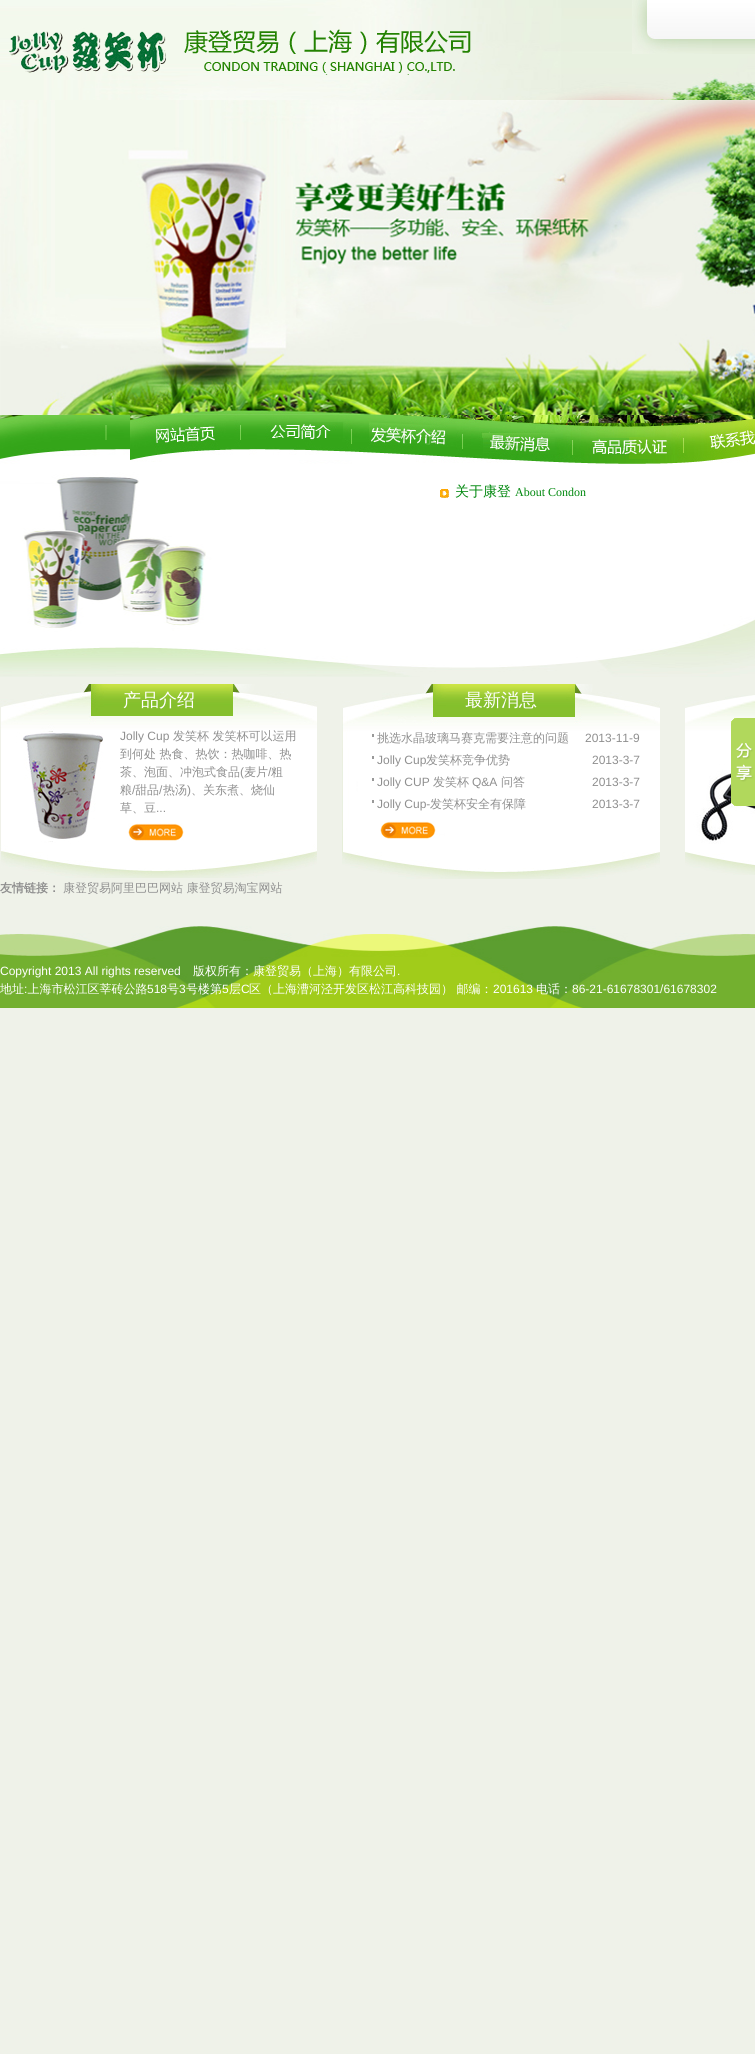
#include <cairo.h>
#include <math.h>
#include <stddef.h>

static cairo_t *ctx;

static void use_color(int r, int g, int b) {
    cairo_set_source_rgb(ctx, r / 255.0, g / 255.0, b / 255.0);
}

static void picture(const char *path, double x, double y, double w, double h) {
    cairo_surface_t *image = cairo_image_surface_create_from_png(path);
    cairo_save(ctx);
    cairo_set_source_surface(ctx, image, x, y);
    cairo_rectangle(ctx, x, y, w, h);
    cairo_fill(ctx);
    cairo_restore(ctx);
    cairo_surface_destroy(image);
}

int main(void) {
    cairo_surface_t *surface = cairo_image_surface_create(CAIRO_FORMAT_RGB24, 755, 2054);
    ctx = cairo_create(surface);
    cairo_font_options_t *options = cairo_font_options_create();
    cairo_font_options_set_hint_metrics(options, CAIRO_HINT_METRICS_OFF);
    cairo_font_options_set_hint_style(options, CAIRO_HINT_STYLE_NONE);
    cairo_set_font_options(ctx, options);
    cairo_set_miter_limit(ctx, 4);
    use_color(239, 242, 233);
    cairo_paint(ctx);
    picture("img1.png", 0, 0, 755, 677);
    picture("img2.png", 9, 29, 462, 46);
    picture("img3.png", 632, 0, 123, 54);
    picture("img4.png", 0, 100, 755, 315);
    picture("img5.png", 130, 415, 111, 47);
    picture("img6.png", 241, 415, 111, 45);
    picture("img7.png", 352, 415, 111, 49);
    picture("img8.png", 463, 415, 110, 49);
    picture("img9.png", 573, 415, 111, 49);
    picture("img10.png", 684, 415, 71, 48);
    picture("img11.png", 440, 489, 9, 9);
    cairo_select_font_face(ctx, "WenQuanYi Zen Hei Medium", CAIRO_FONT_SLANT_NORMAL, CAIRO_FONT_WEIGHT_NORMAL);
    cairo_set_font_size(ctx, 14);
    use_color(0, 136, 13);
    cairo_move_to(ctx, 455, 496);
    cairo_show_text(ctx, "关于康登");
    cairo_select_font_face(ctx, "Liberation Serif", CAIRO_FONT_SLANT_NORMAL, CAIRO_FONT_WEIGHT_NORMAL);
    cairo_set_font_size(ctx, 12);
    cairo_move_to(ctx, 515, 496);
    cairo_show_text(ctx, "About Condon");
    picture("img12.png", 0, 684, 317, 194);
    cairo_select_font_face(ctx, "WenQuanYi Zen Hei Medium", CAIRO_FONT_SLANT_NORMAL, CAIRO_FONT_WEIGHT_NORMAL);
    cairo_set_font_size(ctx, 18);
    use_color(255, 255, 255);
    cairo_move_to(ctx, 123, 706);
    cairo_show_text(ctx, "产品介绍");
    cairo_select_font_face(ctx, "Liberation Sans", CAIRO_FONT_SLANT_NORMAL, CAIRO_FONT_WEIGHT_NORMAL);
    cairo_set_font_size(ctx, 12);
    use_color(143, 143, 143);
    cairo_move_to(ctx, 120, 740);
    cairo_show_text(ctx, "Jolly Cup");
    cairo_select_font_face(ctx, "WenQuanYi Zen Hei Medium", CAIRO_FONT_SLANT_NORMAL, CAIRO_FONT_WEIGHT_NORMAL);
    cairo_move_to(ctx, 173, 740);
    cairo_show_text(ctx, "发笑杯 发笑杯可以运用");
    cairo_move_to(ctx, 120, 758);
    cairo_show_text(ctx, "到何处 热食、热饮：热咖啡、热");
    cairo_move_to(ctx, 120, 776);
    cairo_show_text(ctx, "茶、泡面、冲泡式食品");
    cairo_select_font_face(ctx, "Liberation Sans", CAIRO_FONT_SLANT_NORMAL, CAIRO_FONT_WEIGHT_NORMAL);
    cairo_move_to(ctx, 240, 776);
    cairo_show_text(ctx, "(");
    cairo_select_font_face(ctx, "WenQuanYi Zen Hei Medium", CAIRO_FONT_SLANT_NORMAL, CAIRO_FONT_WEIGHT_NORMAL);
    cairo_move_to(ctx, 244, 776);
    cairo_show_text(ctx, "麦片");
    cairo_select_font_face(ctx, "Liberation Sans", CAIRO_FONT_SLANT_NORMAL, CAIRO_FONT_WEIGHT_NORMAL);
    cairo_move_to(ctx, 268, 776);
    cairo_show_text(ctx, "/");
    cairo_select_font_face(ctx, "WenQuanYi Zen Hei Medium", CAIRO_FONT_SLANT_NORMAL, CAIRO_FONT_WEIGHT_NORMAL);
    cairo_move_to(ctx, 271, 776);
    cairo_show_text(ctx, "粗");
    cairo_move_to(ctx, 120, 794);
    cairo_show_text(ctx, "粮");
    cairo_select_font_face(ctx, "Liberation Sans", CAIRO_FONT_SLANT_NORMAL, CAIRO_FONT_WEIGHT_NORMAL);
    cairo_move_to(ctx, 132, 794);
    cairo_show_text(ctx, "/");
    cairo_select_font_face(ctx, "WenQuanYi Zen Hei Medium", CAIRO_FONT_SLANT_NORMAL, CAIRO_FONT_WEIGHT_NORMAL);
    cairo_move_to(ctx, 135, 794);
    cairo_show_text(ctx, "甜品");
    cairo_select_font_face(ctx, "Liberation Sans", CAIRO_FONT_SLANT_NORMAL, CAIRO_FONT_WEIGHT_NORMAL);
    cairo_move_to(ctx, 159, 794);
    cairo_show_text(ctx, "/");
    cairo_select_font_face(ctx, "WenQuanYi Zen Hei Medium", CAIRO_FONT_SLANT_NORMAL, CAIRO_FONT_WEIGHT_NORMAL);
    cairo_move_to(ctx, 163, 794);
    cairo_show_text(ctx, "热汤");
    cairo_select_font_face(ctx, "Liberation Sans", CAIRO_FONT_SLANT_NORMAL, CAIRO_FONT_WEIGHT_NORMAL);
    cairo_move_to(ctx, 187, 794);
    cairo_show_text(ctx, ")");
    cairo_select_font_face(ctx, "WenQuanYi Zen Hei Medium", CAIRO_FONT_SLANT_NORMAL, CAIRO_FONT_WEIGHT_NORMAL);
    cairo_move_to(ctx, 191, 794);
    cairo_show_text(ctx, "、关东煮、烧仙");
    cairo_move_to(ctx, 120, 812);
    cairo_show_text(ctx, "草、豆");
    cairo_select_font_face(ctx, "Liberation Sans", CAIRO_FONT_SLANT_NORMAL, CAIRO_FONT_WEIGHT_NORMAL);
    cairo_move_to(ctx, 156, 812);
    cairo_show_text(ctx, "...");
    picture("img13.png", 128, 823, 56, 18);
    picture("img14.png", 342, 684, 318, 195);
    cairo_select_font_face(ctx, "WenQuanYi Zen Hei Medium", CAIRO_FONT_SLANT_NORMAL, CAIRO_FONT_WEIGHT_NORMAL);
    cairo_set_font_size(ctx, 18);
    use_color(255, 255, 255);
    cairo_move_to(ctx, 465, 706);
    cairo_show_text(ctx, "最新消息");
    use_color(153, 153, 153);
    cairo_rectangle(ctx, 372, 734, 2, 3);
    cairo_fill(ctx);
    cairo_set_font_size(ctx, 12);
    use_color(143, 143, 143);
    cairo_move_to(ctx, 377, 742);
    cairo_show_text(ctx, "挑选水晶玻璃马赛克需要注意的问题");
    cairo_select_font_face(ctx, "Liberation Sans", CAIRO_FONT_SLANT_NORMAL, CAIRO_FONT_WEIGHT_NORMAL);
    cairo_move_to(ctx, 585, 742);
    cairo_show_text(ctx, "2013-11-9");
    use_color(153, 153, 153);
    cairo_rectangle(ctx, 372, 756, 2, 3);
    cairo_fill(ctx);
    use_color(143, 143, 143);
    cairo_move_to(ctx, 377, 764);
    cairo_show_text(ctx, "Jolly Cup");
    cairo_select_font_face(ctx, "WenQuanYi Zen Hei Medium", CAIRO_FONT_SLANT_NORMAL, CAIRO_FONT_WEIGHT_NORMAL);
    cairo_move_to(ctx, 426, 764);
    cairo_show_text(ctx, "发笑杯竞争优势");
    cairo_select_font_face(ctx, "Liberation Sans", CAIRO_FONT_SLANT_NORMAL, CAIRO_FONT_WEIGHT_NORMAL);
    cairo_move_to(ctx, 592, 764);
    cairo_show_text(ctx, "2013-3-7");
    use_color(153, 153, 153);
    cairo_rectangle(ctx, 372, 778, 2, 3);
    cairo_fill(ctx);
    use_color(143, 143, 143);
    cairo_move_to(ctx, 377, 786);
    cairo_show_text(ctx, "Jolly CUP");
    cairo_select_font_face(ctx, "WenQuanYi Zen Hei Medium", CAIRO_FONT_SLANT_NORMAL, CAIRO_FONT_WEIGHT_NORMAL);
    cairo_move_to(ctx, 433, 786);
    cairo_show_text(ctx, "发笑杯");
    cairo_select_font_face(ctx, "Liberation Sans", CAIRO_FONT_SLANT_NORMAL, CAIRO_FONT_WEIGHT_NORMAL);
    cairo_move_to(ctx, 472, 786);
    cairo_show_text(ctx, "Q&A");
    cairo_select_font_face(ctx, "WenQuanYi Zen Hei Medium", CAIRO_FONT_SLANT_NORMAL, CAIRO_FONT_WEIGHT_NORMAL);
    cairo_move_to(ctx, 501, 786);
    cairo_show_text(ctx, "问答");
    cairo_select_font_face(ctx, "Liberation Sans", CAIRO_FONT_SLANT_NORMAL, CAIRO_FONT_WEIGHT_NORMAL);
    cairo_move_to(ctx, 592, 786);
    cairo_show_text(ctx, "2013-3-7");
    use_color(153, 153, 153);
    cairo_rectangle(ctx, 372, 800, 2, 3);
    cairo_fill(ctx);
    use_color(143, 143, 143);
    cairo_move_to(ctx, 377, 808);
    cairo_show_text(ctx, "Jolly Cup-");
    cairo_select_font_face(ctx, "WenQuanYi Zen Hei Medium", CAIRO_FONT_SLANT_NORMAL, CAIRO_FONT_WEIGHT_NORMAL);
    cairo_move_to(ctx, 430, 808);
    cairo_show_text(ctx, "发笑杯安全有保障");
    cairo_select_font_face(ctx, "Liberation Sans", CAIRO_FONT_SLANT_NORMAL, CAIRO_FONT_WEIGHT_NORMAL);
    cairo_move_to(ctx, 592, 808);
    cairo_show_text(ctx, "2013-3-7");
    picture("img13.png", 380, 821, 56, 18);
    picture("img15.png", 685, 695, 70, 180);
    cairo_select_font_face(ctx, "WenQuanYi Zen Hei", CAIRO_FONT_SLANT_NORMAL, CAIRO_FONT_WEIGHT_BOLD);
    cairo_move_to(ctx, 0, 892);
    cairo_show_text(ctx, "友情链接：");
    cairo_select_font_face(ctx, "WenQuanYi Zen Hei Medium", CAIRO_FONT_SLANT_NORMAL, CAIRO_FONT_WEIGHT_NORMAL);
    cairo_move_to(ctx, 63, 892);
    cairo_show_text(ctx, "康登贸易阿里巴巴网站 康登贸易淘宝网站");
    picture("img16.png", 731, 718, 24, 88);
    picture("img17.png", 0, 926, 755, 82);
    cairo_select_font_face(ctx, "Liberation Sans", CAIRO_FONT_SLANT_NORMAL, CAIRO_FONT_WEIGHT_NORMAL);
    use_color(255, 255, 255);
    cairo_move_to(ctx, 0, 975);
    cairo_show_text(ctx, "Copyright 2013 All rights reserved");
    cairo_select_font_face(ctx, "WenQuanYi Zen Hei Medium", CAIRO_FONT_SLANT_NORMAL, CAIRO_FONT_WEIGHT_NORMAL);
    cairo_move_to(ctx, 193, 975);
    cairo_show_text(ctx, "版权所有：康登贸易（上海）有限公司");
    cairo_select_font_face(ctx, "Liberation Sans", CAIRO_FONT_SLANT_NORMAL, CAIRO_FONT_WEIGHT_NORMAL);
    cairo_move_to(ctx, 397, 975);
    cairo_show_text(ctx, ".");
    cairo_select_font_face(ctx, "WenQuanYi Zen Hei Medium", CAIRO_FONT_SLANT_NORMAL, CAIRO_FONT_WEIGHT_NORMAL);
    cairo_move_to(ctx, 0, 993);
    cairo_show_text(ctx, "地址 上海市松江区莘砖公路");
    cairo_select_font_face(ctx, "Liberation Sans", CAIRO_FONT_SLANT_NORMAL, CAIRO_FONT_WEIGHT_NORMAL);
    cairo_move_to(ctx, 147, 993);
    cairo_show_text(ctx, "518");
    cairo_select_font_face(ctx, "WenQuanYi Zen Hei Medium", CAIRO_FONT_SLANT_NORMAL, CAIRO_FONT_WEIGHT_NORMAL);
    cairo_move_to(ctx, 167, 993);
    cairo_show_text(ctx, "号");
    cairo_select_font_face(ctx, "Liberation Sans", CAIRO_FONT_SLANT_NORMAL, CAIRO_FONT_WEIGHT_NORMAL);
    cairo_move_to(ctx, 179, 993);
    cairo_show_text(ctx, "3");
    cairo_select_font_face(ctx, "WenQuanYi Zen Hei Medium", CAIRO_FONT_SLANT_NORMAL, CAIRO_FONT_WEIGHT_NORMAL);
    cairo_move_to(ctx, 186, 993);
    cairo_show_text(ctx, "号楼第");
    cairo_select_font_face(ctx, "Liberation Sans", CAIRO_FONT_SLANT_NORMAL, CAIRO_FONT_WEIGHT_NORMAL);
    cairo_move_to(ctx, 222, 993);
    cairo_show_text(ctx, "5");
    cairo_select_font_face(ctx, "WenQuanYi Zen Hei Medium", CAIRO_FONT_SLANT_NORMAL, CAIRO_FONT_WEIGHT_NORMAL);
    cairo_move_to(ctx, 229, 993);
    cairo_show_text(ctx, "层");
    cairo_select_font_face(ctx, "Liberation Sans", CAIRO_FONT_SLANT_NORMAL, CAIRO_FONT_WEIGHT_NORMAL);
    cairo_move_to(ctx, 241, 993);
    cairo_show_text(ctx, "C");
    cairo_select_font_face(ctx, "WenQuanYi Zen Hei Medium", CAIRO_FONT_SLANT_NORMAL, CAIRO_FONT_WEIGHT_NORMAL);
    cairo_move_to(ctx, 249, 993);
    cairo_show_text(ctx, "区（上海漕河泾开发区松江高科技园） 邮编：");
    cairo_select_font_face(ctx, "Liberation Sans", CAIRO_FONT_SLANT_NORMAL, CAIRO_FONT_WEIGHT_NORMAL);
    cairo_move_to(ctx, 493, 993);
    cairo_show_text(ctx, "201613");
    cairo_select_font_face(ctx, "WenQuanYi Zen Hei Medium", CAIRO_FONT_SLANT_NORMAL, CAIRO_FONT_WEIGHT_NORMAL);
    cairo_move_to(ctx, 536, 993);
    cairo_show_text(ctx, "电话：");
    cairo_select_font_face(ctx, "Liberation Sans", CAIRO_FONT_SLANT_NORMAL, CAIRO_FONT_WEIGHT_NORMAL);
    cairo_move_to(ctx, 572, 993);
    cairo_show_text(ctx, "86-21-61678301/61678302");
    cairo_move_to(ctx, 24, 993);
    cairo_show_text(ctx, ":");
    cairo_surface_write_to_png(surface, "result.png");
    cairo_font_options_destroy(options);
    cairo_destroy(ctx);
    cairo_surface_destroy(surface);
    return 0;
}
